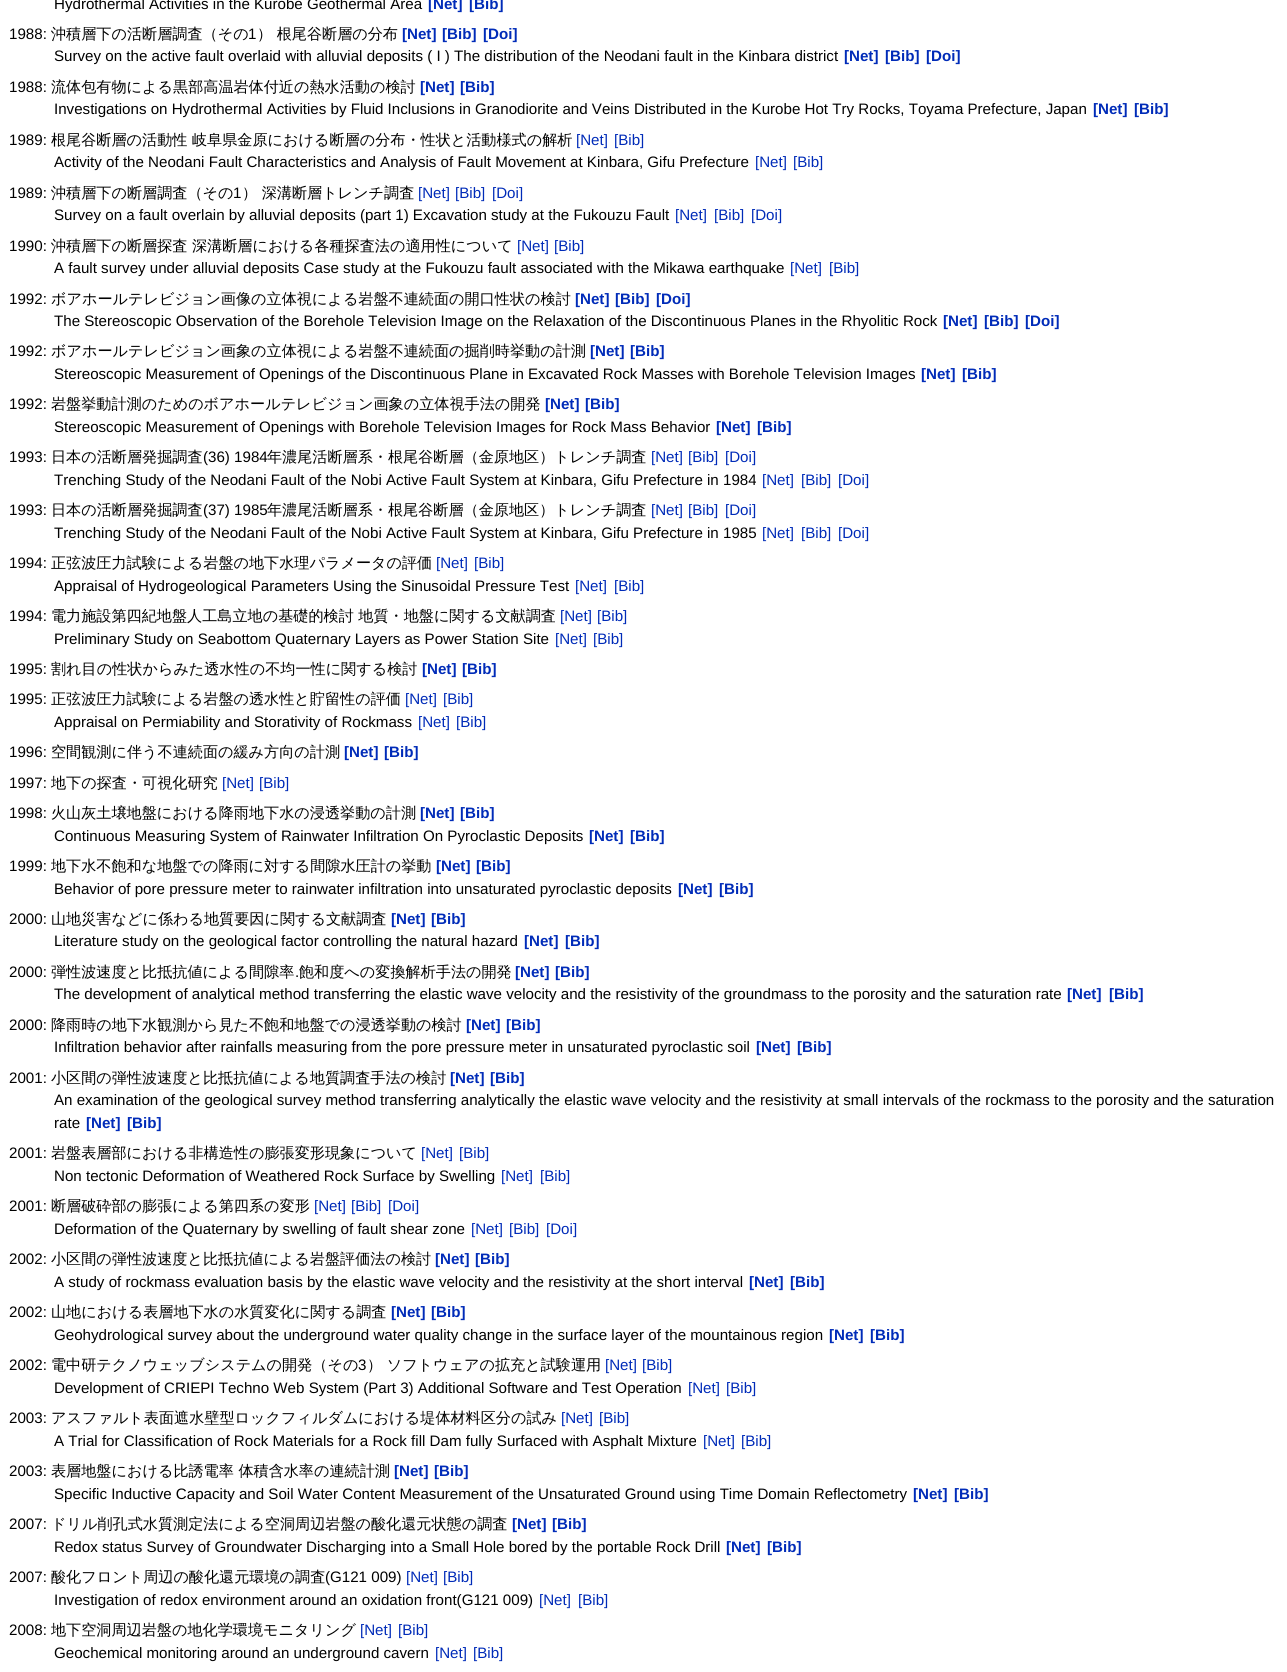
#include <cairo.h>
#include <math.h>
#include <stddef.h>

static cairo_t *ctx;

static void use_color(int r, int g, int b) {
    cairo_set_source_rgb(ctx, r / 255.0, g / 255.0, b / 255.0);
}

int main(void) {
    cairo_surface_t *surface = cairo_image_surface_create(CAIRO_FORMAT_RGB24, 1287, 1672);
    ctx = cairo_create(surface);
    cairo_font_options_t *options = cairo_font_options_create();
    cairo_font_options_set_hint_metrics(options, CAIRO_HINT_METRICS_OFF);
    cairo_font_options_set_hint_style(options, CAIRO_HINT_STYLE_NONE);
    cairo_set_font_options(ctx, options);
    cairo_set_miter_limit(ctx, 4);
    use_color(255, 255, 255);
    cairo_paint(ctx);
    cairo_select_font_face(ctx, "Liberation Sans", CAIRO_FONT_SLANT_NORMAL, CAIRO_FONT_WEIGHT_NORMAL);
    cairo_set_font_size(ctx, 15.12);
    use_color(0, 0, 0);
    cairo_move_to(ctx, 54, 9);
    cairo_show_text(ctx, "Hydrothermal Activities in the Kurobe Geothermal Area");
    cairo_select_font_face(ctx, "Liberation Sans", CAIRO_FONT_SLANT_NORMAL, CAIRO_FONT_WEIGHT_BOLD);
    use_color(0, 43, 184);
    cairo_move_to(ctx, 428, 9);
    cairo_show_text(ctx, "[Net]");
    cairo_move_to(ctx, 469, 9);
    cairo_show_text(ctx, "[Bib]");
    cairo_select_font_face(ctx, "Liberation Sans", CAIRO_FONT_SLANT_NORMAL, CAIRO_FONT_WEIGHT_NORMAL);
    use_color(0, 0, 0);
    cairo_move_to(ctx, 9, 39);
    cairo_show_text(ctx, "1988:");
    cairo_select_font_face(ctx, "WenQuanYi Zen Hei Medium", CAIRO_FONT_SLANT_NORMAL, CAIRO_FONT_WEIGHT_NORMAL);
    cairo_move_to(ctx, 51, 39);
    cairo_show_text(ctx, "沖積層下の活断層調査（その");
    cairo_select_font_face(ctx, "Liberation Sans", CAIRO_FONT_SLANT_NORMAL, CAIRO_FONT_WEIGHT_NORMAL);
    cairo_move_to(ctx, 248, 39);
    cairo_show_text(ctx, "1");
    cairo_select_font_face(ctx, "WenQuanYi Zen Hei Medium", CAIRO_FONT_SLANT_NORMAL, CAIRO_FONT_WEIGHT_NORMAL);
    cairo_move_to(ctx, 257, 39);
    cairo_show_text(ctx, "） 根尾谷断層の分布");
    cairo_select_font_face(ctx, "Liberation Sans", CAIRO_FONT_SLANT_NORMAL, CAIRO_FONT_WEIGHT_BOLD);
    use_color(0, 43, 184);
    cairo_move_to(ctx, 402, 39);
    cairo_show_text(ctx, "[Net]");
    cairo_move_to(ctx, 442, 39);
    cairo_show_text(ctx, "[Bib]");
    cairo_move_to(ctx, 483, 39);
    cairo_show_text(ctx, "[Doi]");
    cairo_select_font_face(ctx, "Liberation Sans", CAIRO_FONT_SLANT_NORMAL, CAIRO_FONT_WEIGHT_NORMAL);
    use_color(0, 0, 0);
    cairo_move_to(ctx, 54, 61);
    cairo_show_text(ctx, "Survey on the active fault overlaid with alluvial deposits ( I ) The distribution of the Neodani fault in the Kinbara district");
    cairo_select_font_face(ctx, "Liberation Sans", CAIRO_FONT_SLANT_NORMAL, CAIRO_FONT_WEIGHT_BOLD);
    use_color(0, 43, 184);
    cairo_move_to(ctx, 844, 61);
    cairo_show_text(ctx, "[Net]");
    cairo_move_to(ctx, 885, 61);
    cairo_show_text(ctx, "[Bib]");
    cairo_move_to(ctx, 926, 61);
    cairo_show_text(ctx, "[Doi]");
    cairo_select_font_face(ctx, "Liberation Sans", CAIRO_FONT_SLANT_NORMAL, CAIRO_FONT_WEIGHT_NORMAL);
    use_color(0, 0, 0);
    cairo_move_to(ctx, 9, 92);
    cairo_show_text(ctx, "1988:");
    cairo_select_font_face(ctx, "WenQuanYi Zen Hei Medium", CAIRO_FONT_SLANT_NORMAL, CAIRO_FONT_WEIGHT_NORMAL);
    cairo_move_to(ctx, 51, 92);
    cairo_show_text(ctx, "流体包有物による黒部高温岩体付近の熱水活動の検討");
    cairo_select_font_face(ctx, "Liberation Sans", CAIRO_FONT_SLANT_NORMAL, CAIRO_FONT_WEIGHT_BOLD);
    use_color(0, 43, 184);
    cairo_move_to(ctx, 420, 92);
    cairo_show_text(ctx, "[Net]");
    cairo_move_to(ctx, 460, 92);
    cairo_show_text(ctx, "[Bib]");
    cairo_select_font_face(ctx, "Liberation Sans", CAIRO_FONT_SLANT_NORMAL, CAIRO_FONT_WEIGHT_NORMAL);
    use_color(0, 0, 0);
    cairo_move_to(ctx, 54, 114);
    cairo_show_text(ctx, "Investigations on Hydrothermal Activities by Fluid Inclusions in Granodiorite and Veins Distributed in the Kurobe Hot Try Rocks, Toyama Prefecture, Japan");
    cairo_select_font_face(ctx, "Liberation Sans", CAIRO_FONT_SLANT_NORMAL, CAIRO_FONT_WEIGHT_BOLD);
    use_color(0, 43, 184);
    cairo_move_to(ctx, 1093, 114);
    cairo_show_text(ctx, "[Net]");
    cairo_move_to(ctx, 1134, 114);
    cairo_show_text(ctx, "[Bib]");
    cairo_select_font_face(ctx, "Liberation Sans", CAIRO_FONT_SLANT_NORMAL, CAIRO_FONT_WEIGHT_NORMAL);
    use_color(0, 0, 0);
    cairo_move_to(ctx, 9, 145);
    cairo_show_text(ctx, "1989:");
    cairo_select_font_face(ctx, "WenQuanYi Zen Hei Medium", CAIRO_FONT_SLANT_NORMAL, CAIRO_FONT_WEIGHT_NORMAL);
    cairo_move_to(ctx, 51, 145);
    cairo_show_text(ctx, "根尾谷断層の活動性 岐阜県金原における断層の分布・性状と活動様式の解析");
    cairo_select_font_face(ctx, "Liberation Sans", CAIRO_FONT_SLANT_NORMAL, CAIRO_FONT_WEIGHT_NORMAL);
    use_color(0, 43, 184);
    cairo_move_to(ctx, 576, 145);
    cairo_show_text(ctx, "[Net]");
    cairo_move_to(ctx, 614, 145);
    cairo_show_text(ctx, "[Bib]");
    use_color(0, 0, 0);
    cairo_move_to(ctx, 54, 167);
    cairo_show_text(ctx, "Activity of the Neodani Fault Characteristics and Analysis of Fault Movement at Kinbara, Gifu Prefecture");
    use_color(0, 43, 184);
    cairo_move_to(ctx, 755, 167);
    cairo_show_text(ctx, "[Net]");
    cairo_move_to(ctx, 793, 167);
    cairo_show_text(ctx, "[Bib]");
    use_color(0, 0, 0);
    cairo_move_to(ctx, 9, 198);
    cairo_show_text(ctx, "1989:");
    cairo_select_font_face(ctx, "WenQuanYi Zen Hei Medium", CAIRO_FONT_SLANT_NORMAL, CAIRO_FONT_WEIGHT_NORMAL);
    cairo_move_to(ctx, 51, 198);
    cairo_show_text(ctx, "沖積層下の断層調査（その");
    cairo_select_font_face(ctx, "Liberation Sans", CAIRO_FONT_SLANT_NORMAL, CAIRO_FONT_WEIGHT_NORMAL);
    cairo_move_to(ctx, 233, 198);
    cairo_show_text(ctx, "1");
    cairo_select_font_face(ctx, "WenQuanYi Zen Hei Medium", CAIRO_FONT_SLANT_NORMAL, CAIRO_FONT_WEIGHT_NORMAL);
    cairo_move_to(ctx, 242, 198);
    cairo_show_text(ctx, "） 深溝断層トレンチ調査");
    cairo_select_font_face(ctx, "Liberation Sans", CAIRO_FONT_SLANT_NORMAL, CAIRO_FONT_WEIGHT_NORMAL);
    use_color(0, 43, 184);
    cairo_move_to(ctx, 418, 198);
    cairo_show_text(ctx, "[Net]");
    cairo_move_to(ctx, 455, 198);
    cairo_show_text(ctx, "[Bib]");
    cairo_move_to(ctx, 492, 198);
    cairo_show_text(ctx, "[Doi]");
    use_color(0, 0, 0);
    cairo_move_to(ctx, 54, 220);
    cairo_show_text(ctx, "Survey on a fault overlain by alluvial deposits (part 1) Excavation study at the Fukouzu Fault");
    use_color(0, 43, 184);
    cairo_move_to(ctx, 675, 220);
    cairo_show_text(ctx, "[Net]");
    cairo_move_to(ctx, 714, 220);
    cairo_show_text(ctx, "[Bib]");
    cairo_move_to(ctx, 751, 220);
    cairo_show_text(ctx, "[Doi]");
    use_color(0, 0, 0);
    cairo_move_to(ctx, 9, 251);
    cairo_show_text(ctx, "1990:");
    cairo_select_font_face(ctx, "WenQuanYi Zen Hei Medium", CAIRO_FONT_SLANT_NORMAL, CAIRO_FONT_WEIGHT_NORMAL);
    cairo_move_to(ctx, 51, 251);
    cairo_show_text(ctx, "沖積層下の断層探査 深溝断層における各種探査法の適用性について");
    cairo_select_font_face(ctx, "Liberation Sans", CAIRO_FONT_SLANT_NORMAL, CAIRO_FONT_WEIGHT_NORMAL);
    use_color(0, 43, 184);
    cairo_move_to(ctx, 517, 251);
    cairo_show_text(ctx, "[Net]");
    cairo_move_to(ctx, 554, 251);
    cairo_show_text(ctx, "[Bib]");
    use_color(0, 0, 0);
    cairo_move_to(ctx, 54, 273);
    cairo_show_text(ctx, "A fault survey under alluvial deposits Case study at the Fukouzu fault associated with the Mikawa earthquake");
    use_color(0, 43, 184);
    cairo_move_to(ctx, 790, 273);
    cairo_show_text(ctx, "[Net]");
    cairo_move_to(ctx, 829, 273);
    cairo_show_text(ctx, "[Bib]");
    use_color(0, 0, 0);
    cairo_move_to(ctx, 9, 304);
    cairo_show_text(ctx, "1992:");
    cairo_select_font_face(ctx, "WenQuanYi Zen Hei Medium", CAIRO_FONT_SLANT_NORMAL, CAIRO_FONT_WEIGHT_NORMAL);
    cairo_move_to(ctx, 51, 304);
    cairo_show_text(ctx, "ボアホールテレビジョン画像の立体視による岩盤不連続面の開口性状の検討");
    cairo_select_font_face(ctx, "Liberation Sans", CAIRO_FONT_SLANT_NORMAL, CAIRO_FONT_WEIGHT_BOLD);
    use_color(0, 43, 184);
    cairo_move_to(ctx, 575, 304);
    cairo_show_text(ctx, "[Net]");
    cairo_move_to(ctx, 615, 304);
    cairo_show_text(ctx, "[Bib]");
    cairo_move_to(ctx, 656, 304);
    cairo_show_text(ctx, "[Doi]");
    cairo_select_font_face(ctx, "Liberation Sans", CAIRO_FONT_SLANT_NORMAL, CAIRO_FONT_WEIGHT_NORMAL);
    use_color(0, 0, 0);
    cairo_move_to(ctx, 54, 326);
    cairo_show_text(ctx, "The Stereoscopic Observation of the Borehole Television Image on the Relaxation of the Discontinuous Planes in the Rhyolitic Rock");
    cairo_select_font_face(ctx, "Liberation Sans", CAIRO_FONT_SLANT_NORMAL, CAIRO_FONT_WEIGHT_BOLD);
    use_color(0, 43, 184);
    cairo_move_to(ctx, 943, 326);
    cairo_show_text(ctx, "[Net]");
    cairo_move_to(ctx, 984, 326);
    cairo_show_text(ctx, "[Bib]");
    cairo_move_to(ctx, 1025, 326);
    cairo_show_text(ctx, "[Doi]");
    cairo_select_font_face(ctx, "Liberation Sans", CAIRO_FONT_SLANT_NORMAL, CAIRO_FONT_WEIGHT_NORMAL);
    use_color(0, 0, 0);
    cairo_move_to(ctx, 9, 356);
    cairo_show_text(ctx, "1992:");
    cairo_select_font_face(ctx, "WenQuanYi Zen Hei Medium", CAIRO_FONT_SLANT_NORMAL, CAIRO_FONT_WEIGHT_NORMAL);
    cairo_move_to(ctx, 51, 356);
    cairo_show_text(ctx, "ボアホールテレビジョン画象の立体視による岩盤不連続面の掘削時挙動の計測");
    cairo_select_font_face(ctx, "Liberation Sans", CAIRO_FONT_SLANT_NORMAL, CAIRO_FONT_WEIGHT_BOLD);
    use_color(0, 43, 184);
    cairo_move_to(ctx, 590, 356);
    cairo_show_text(ctx, "[Net]");
    cairo_move_to(ctx, 630, 356);
    cairo_show_text(ctx, "[Bib]");
    cairo_select_font_face(ctx, "Liberation Sans", CAIRO_FONT_SLANT_NORMAL, CAIRO_FONT_WEIGHT_NORMAL);
    use_color(0, 0, 0);
    cairo_move_to(ctx, 54, 379);
    cairo_show_text(ctx, "Stereoscopic Measurement of Openings of the Discontinuous Plane in Excavated Rock Masses with Borehole Television Images");
    cairo_select_font_face(ctx, "Liberation Sans", CAIRO_FONT_SLANT_NORMAL, CAIRO_FONT_WEIGHT_BOLD);
    use_color(0, 43, 184);
    cairo_move_to(ctx, 921, 379);
    cairo_show_text(ctx, "[Net]");
    cairo_move_to(ctx, 962, 379);
    cairo_show_text(ctx, "[Bib]");
    cairo_select_font_face(ctx, "Liberation Sans", CAIRO_FONT_SLANT_NORMAL, CAIRO_FONT_WEIGHT_NORMAL);
    use_color(0, 0, 0);
    cairo_move_to(ctx, 9, 409);
    cairo_show_text(ctx, "1992:");
    cairo_select_font_face(ctx, "WenQuanYi Zen Hei Medium", CAIRO_FONT_SLANT_NORMAL, CAIRO_FONT_WEIGHT_NORMAL);
    cairo_move_to(ctx, 51, 409);
    cairo_show_text(ctx, "岩盤挙動計測のためのボアホールテレビジョン画象の立体視手法の開発");
    cairo_select_font_face(ctx, "Liberation Sans", CAIRO_FONT_SLANT_NORMAL, CAIRO_FONT_WEIGHT_BOLD);
    use_color(0, 43, 184);
    cairo_move_to(ctx, 545, 409);
    cairo_show_text(ctx, "[Net]");
    cairo_move_to(ctx, 585, 409);
    cairo_show_text(ctx, "[Bib]");
    cairo_select_font_face(ctx, "Liberation Sans", CAIRO_FONT_SLANT_NORMAL, CAIRO_FONT_WEIGHT_NORMAL);
    use_color(0, 0, 0);
    cairo_move_to(ctx, 54, 432);
    cairo_show_text(ctx, "Stereoscopic Measurement of Openings with Borehole Television Images for Rock Mass Behavior");
    cairo_select_font_face(ctx, "Liberation Sans", CAIRO_FONT_SLANT_NORMAL, CAIRO_FONT_WEIGHT_BOLD);
    use_color(0, 43, 184);
    cairo_move_to(ctx, 716, 432);
    cairo_show_text(ctx, "[Net]");
    cairo_move_to(ctx, 757, 432);
    cairo_show_text(ctx, "[Bib]");
    cairo_select_font_face(ctx, "Liberation Sans", CAIRO_FONT_SLANT_NORMAL, CAIRO_FONT_WEIGHT_NORMAL);
    use_color(0, 0, 0);
    cairo_move_to(ctx, 9, 462);
    cairo_show_text(ctx, "1993:");
    cairo_select_font_face(ctx, "WenQuanYi Zen Hei Medium", CAIRO_FONT_SLANT_NORMAL, CAIRO_FONT_WEIGHT_NORMAL);
    cairo_move_to(ctx, 51, 462);
    cairo_show_text(ctx, "日本の活断層発掘調査");
    cairo_select_font_face(ctx, "Liberation Sans", CAIRO_FONT_SLANT_NORMAL, CAIRO_FONT_WEIGHT_NORMAL);
    cairo_move_to(ctx, 203, 462);
    cairo_show_text(ctx, "(36) 1984");
    cairo_select_font_face(ctx, "WenQuanYi Zen Hei Medium", CAIRO_FONT_SLANT_NORMAL, CAIRO_FONT_WEIGHT_NORMAL);
    cairo_move_to(ctx, 267, 462);
    cairo_show_text(ctx, "年濃尾活断層系・根尾谷断層（金原地区）トレンチ調査");
    cairo_select_font_face(ctx, "Liberation Sans", CAIRO_FONT_SLANT_NORMAL, CAIRO_FONT_WEIGHT_NORMAL);
    use_color(0, 43, 184);
    cairo_move_to(ctx, 651, 462);
    cairo_show_text(ctx, "[Net]");
    cairo_move_to(ctx, 688, 462);
    cairo_show_text(ctx, "[Bib]");
    cairo_move_to(ctx, 725, 462);
    cairo_show_text(ctx, "[Doi]");
    use_color(0, 0, 0);
    cairo_move_to(ctx, 54, 485);
    cairo_show_text(ctx, "Trenching Study of the Neodani Fault of the Nobi Active Fault System at Kinbara, Gifu Prefecture in 1984");
    use_color(0, 43, 184);
    cairo_move_to(ctx, 762, 485);
    cairo_show_text(ctx, "[Net]");
    cairo_move_to(ctx, 801, 485);
    cairo_show_text(ctx, "[Bib]");
    cairo_move_to(ctx, 838, 485);
    cairo_show_text(ctx, "[Doi]");
    use_color(0, 0, 0);
    cairo_move_to(ctx, 9, 515);
    cairo_show_text(ctx, "1993:");
    cairo_select_font_face(ctx, "WenQuanYi Zen Hei Medium", CAIRO_FONT_SLANT_NORMAL, CAIRO_FONT_WEIGHT_NORMAL);
    cairo_move_to(ctx, 51, 515);
    cairo_show_text(ctx, "日本の活断層発掘調査");
    cairo_select_font_face(ctx, "Liberation Sans", CAIRO_FONT_SLANT_NORMAL, CAIRO_FONT_WEIGHT_NORMAL);
    cairo_move_to(ctx, 203, 515);
    cairo_show_text(ctx, "(37) 1985");
    cairo_select_font_face(ctx, "WenQuanYi Zen Hei Medium", CAIRO_FONT_SLANT_NORMAL, CAIRO_FONT_WEIGHT_NORMAL);
    cairo_move_to(ctx, 267, 515);
    cairo_show_text(ctx, "年濃尾活断層系・根尾谷断層（金原地区）トレンチ調査");
    cairo_select_font_face(ctx, "Liberation Sans", CAIRO_FONT_SLANT_NORMAL, CAIRO_FONT_WEIGHT_NORMAL);
    use_color(0, 43, 184);
    cairo_move_to(ctx, 651, 515);
    cairo_show_text(ctx, "[Net]");
    cairo_move_to(ctx, 688, 515);
    cairo_show_text(ctx, "[Bib]");
    cairo_move_to(ctx, 725, 515);
    cairo_show_text(ctx, "[Doi]");
    use_color(0, 0, 0);
    cairo_move_to(ctx, 54, 538);
    cairo_show_text(ctx, "Trenching Study of the Neodani Fault of the Nobi Active Fault System at Kinbara, Gifu Prefecture in 1985");
    use_color(0, 43, 184);
    cairo_move_to(ctx, 762, 538);
    cairo_show_text(ctx, "[Net]");
    cairo_move_to(ctx, 801, 538);
    cairo_show_text(ctx, "[Bib]");
    cairo_move_to(ctx, 838, 538);
    cairo_show_text(ctx, "[Doi]");
    use_color(0, 0, 0);
    cairo_move_to(ctx, 9, 568);
    cairo_show_text(ctx, "1994:");
    cairo_select_font_face(ctx, "WenQuanYi Zen Hei Medium", CAIRO_FONT_SLANT_NORMAL, CAIRO_FONT_WEIGHT_NORMAL);
    cairo_move_to(ctx, 51, 568);
    cairo_show_text(ctx, "正弦波圧力試験による岩盤の地下水理パラメータの評価");
    cairo_select_font_face(ctx, "Liberation Sans", CAIRO_FONT_SLANT_NORMAL, CAIRO_FONT_WEIGHT_NORMAL);
    use_color(0, 43, 184);
    cairo_move_to(ctx, 436, 568);
    cairo_show_text(ctx, "[Net]");
    cairo_move_to(ctx, 474, 568);
    cairo_show_text(ctx, "[Bib]");
    use_color(0, 0, 0);
    cairo_move_to(ctx, 54, 591);
    cairo_show_text(ctx, "Appraisal of Hydrogeological Parameters Using the Sinusoidal Pressure Test");
    use_color(0, 43, 184);
    cairo_move_to(ctx, 575, 591);
    cairo_show_text(ctx, "[Net]");
    cairo_move_to(ctx, 614, 591);
    cairo_show_text(ctx, "[Bib]");
    use_color(0, 0, 0);
    cairo_move_to(ctx, 9, 621);
    cairo_show_text(ctx, "1994:");
    cairo_select_font_face(ctx, "WenQuanYi Zen Hei Medium", CAIRO_FONT_SLANT_NORMAL, CAIRO_FONT_WEIGHT_NORMAL);
    cairo_move_to(ctx, 51, 621);
    cairo_show_text(ctx, "電力施設第四紀地盤人工島立地の基礎的検討 地質・地盤に関する文献調査");
    cairo_select_font_face(ctx, "Liberation Sans", CAIRO_FONT_SLANT_NORMAL, CAIRO_FONT_WEIGHT_NORMAL);
    use_color(0, 43, 184);
    cairo_move_to(ctx, 560, 621);
    cairo_show_text(ctx, "[Net]");
    cairo_move_to(ctx, 597, 621);
    cairo_show_text(ctx, "[Bib]");
    use_color(0, 0, 0);
    cairo_move_to(ctx, 54, 644);
    cairo_show_text(ctx, "Preliminary Study on Seabottom Quaternary Layers as Power Station Site");
    use_color(0, 43, 184);
    cairo_move_to(ctx, 555, 644);
    cairo_show_text(ctx, "[Net]");
    cairo_move_to(ctx, 593, 644);
    cairo_show_text(ctx, "[Bib]");
    use_color(0, 0, 0);
    cairo_move_to(ctx, 9, 674);
    cairo_show_text(ctx, "1995:");
    cairo_select_font_face(ctx, "WenQuanYi Zen Hei Medium", CAIRO_FONT_SLANT_NORMAL, CAIRO_FONT_WEIGHT_NORMAL);
    cairo_move_to(ctx, 51, 674);
    cairo_show_text(ctx, "割れ目の性状からみた透水性の不均一性に関する検討");
    cairo_select_font_face(ctx, "Liberation Sans", CAIRO_FONT_SLANT_NORMAL, CAIRO_FONT_WEIGHT_BOLD);
    use_color(0, 43, 184);
    cairo_move_to(ctx, 422, 674);
    cairo_show_text(ctx, "[Net]");
    cairo_move_to(ctx, 462, 674);
    cairo_show_text(ctx, "[Bib]");
    cairo_select_font_face(ctx, "Liberation Sans", CAIRO_FONT_SLANT_NORMAL, CAIRO_FONT_WEIGHT_NORMAL);
    use_color(0, 0, 0);
    cairo_move_to(ctx, 9, 704);
    cairo_show_text(ctx, "1995:");
    cairo_select_font_face(ctx, "WenQuanYi Zen Hei Medium", CAIRO_FONT_SLANT_NORMAL, CAIRO_FONT_WEIGHT_NORMAL);
    cairo_move_to(ctx, 51, 704);
    cairo_show_text(ctx, "正弦波圧力試験による岩盤の透水性と貯留性の評価");
    cairo_select_font_face(ctx, "Liberation Sans", CAIRO_FONT_SLANT_NORMAL, CAIRO_FONT_WEIGHT_NORMAL);
    use_color(0, 43, 184);
    cairo_move_to(ctx, 405, 704);
    cairo_show_text(ctx, "[Net]");
    cairo_move_to(ctx, 443, 704);
    cairo_show_text(ctx, "[Bib]");
    use_color(0, 0, 0);
    cairo_move_to(ctx, 54, 727);
    cairo_show_text(ctx, "Appraisal on Permiability and Storativity of Rockmass");
    use_color(0, 43, 184);
    cairo_move_to(ctx, 418, 727);
    cairo_show_text(ctx, "[Net]");
    cairo_move_to(ctx, 456, 727);
    cairo_show_text(ctx, "[Bib]");
    use_color(0, 0, 0);
    cairo_move_to(ctx, 9, 757);
    cairo_show_text(ctx, "1996:");
    cairo_select_font_face(ctx, "WenQuanYi Zen Hei Medium", CAIRO_FONT_SLANT_NORMAL, CAIRO_FONT_WEIGHT_NORMAL);
    cairo_move_to(ctx, 51, 757);
    cairo_show_text(ctx, "空間観測に伴う不連続面の緩み方向の計測");
    cairo_select_font_face(ctx, "Liberation Sans", CAIRO_FONT_SLANT_NORMAL, CAIRO_FONT_WEIGHT_BOLD);
    use_color(0, 43, 184);
    cairo_move_to(ctx, 344, 757);
    cairo_show_text(ctx, "[Net]");
    cairo_move_to(ctx, 384, 757);
    cairo_show_text(ctx, "[Bib]");
    cairo_select_font_face(ctx, "Liberation Sans", CAIRO_FONT_SLANT_NORMAL, CAIRO_FONT_WEIGHT_NORMAL);
    use_color(0, 0, 0);
    cairo_move_to(ctx, 9, 788);
    cairo_show_text(ctx, "1997:");
    cairo_select_font_face(ctx, "WenQuanYi Zen Hei Medium", CAIRO_FONT_SLANT_NORMAL, CAIRO_FONT_WEIGHT_NORMAL);
    cairo_move_to(ctx, 51, 788);
    cairo_show_text(ctx, "地下の探査・可視化研究");
    cairo_select_font_face(ctx, "Liberation Sans", CAIRO_FONT_SLANT_NORMAL, CAIRO_FONT_WEIGHT_NORMAL);
    use_color(0, 43, 184);
    cairo_move_to(ctx, 222, 788);
    cairo_show_text(ctx, "[Net]");
    cairo_move_to(ctx, 259, 788);
    cairo_show_text(ctx, "[Bib]");
    use_color(0, 0, 0);
    cairo_move_to(ctx, 9, 818);
    cairo_show_text(ctx, "1998:");
    cairo_select_font_face(ctx, "WenQuanYi Zen Hei Medium", CAIRO_FONT_SLANT_NORMAL, CAIRO_FONT_WEIGHT_NORMAL);
    cairo_move_to(ctx, 51, 818);
    cairo_show_text(ctx, "火山灰土壌地盤における降雨地下水の浸透挙動の計測");
    cairo_select_font_face(ctx, "Liberation Sans", CAIRO_FONT_SLANT_NORMAL, CAIRO_FONT_WEIGHT_BOLD);
    use_color(0, 43, 184);
    cairo_move_to(ctx, 420, 818);
    cairo_show_text(ctx, "[Net]");
    cairo_move_to(ctx, 460, 818);
    cairo_show_text(ctx, "[Bib]");
    cairo_select_font_face(ctx, "Liberation Sans", CAIRO_FONT_SLANT_NORMAL, CAIRO_FONT_WEIGHT_NORMAL);
    use_color(0, 0, 0);
    cairo_move_to(ctx, 54, 841);
    cairo_show_text(ctx, "Continuous Measuring System of Rainwater Infiltration On Pyroclastic Deposits");
    cairo_select_font_face(ctx, "Liberation Sans", CAIRO_FONT_SLANT_NORMAL, CAIRO_FONT_WEIGHT_BOLD);
    use_color(0, 43, 184);
    cairo_move_to(ctx, 589, 841);
    cairo_show_text(ctx, "[Net]");
    cairo_move_to(ctx, 630, 841);
    cairo_show_text(ctx, "[Bib]");
    cairo_select_font_face(ctx, "Liberation Sans", CAIRO_FONT_SLANT_NORMAL, CAIRO_FONT_WEIGHT_NORMAL);
    use_color(0, 0, 0);
    cairo_move_to(ctx, 9, 871);
    cairo_show_text(ctx, "1999:");
    cairo_select_font_face(ctx, "WenQuanYi Zen Hei Medium", CAIRO_FONT_SLANT_NORMAL, CAIRO_FONT_WEIGHT_NORMAL);
    cairo_move_to(ctx, 51, 871);
    cairo_show_text(ctx, "地下水不飽和な地盤での降雨に対する間隙水圧計の挙動");
    cairo_select_font_face(ctx, "Liberation Sans", CAIRO_FONT_SLANT_NORMAL, CAIRO_FONT_WEIGHT_BOLD);
    use_color(0, 43, 184);
    cairo_move_to(ctx, 436, 871);
    cairo_show_text(ctx, "[Net]");
    cairo_move_to(ctx, 476, 871);
    cairo_show_text(ctx, "[Bib]");
    cairo_select_font_face(ctx, "Liberation Sans", CAIRO_FONT_SLANT_NORMAL, CAIRO_FONT_WEIGHT_NORMAL);
    use_color(0, 0, 0);
    cairo_move_to(ctx, 54, 894);
    cairo_show_text(ctx, "Behavior of pore pressure meter to rainwater infiltration into unsaturated pyroclastic deposits");
    cairo_select_font_face(ctx, "Liberation Sans", CAIRO_FONT_SLANT_NORMAL, CAIRO_FONT_WEIGHT_BOLD);
    use_color(0, 43, 184);
    cairo_move_to(ctx, 678, 894);
    cairo_show_text(ctx, "[Net]");
    cairo_move_to(ctx, 719, 894);
    cairo_show_text(ctx, "[Bib]");
    cairo_select_font_face(ctx, "Liberation Sans", CAIRO_FONT_SLANT_NORMAL, CAIRO_FONT_WEIGHT_NORMAL);
    use_color(0, 0, 0);
    cairo_move_to(ctx, 9, 924);
    cairo_show_text(ctx, "2000:");
    cairo_select_font_face(ctx, "WenQuanYi Zen Hei Medium", CAIRO_FONT_SLANT_NORMAL, CAIRO_FONT_WEIGHT_NORMAL);
    cairo_move_to(ctx, 51, 924);
    cairo_show_text(ctx, "山地災害などに係わる地質要因に関する文献調査");
    cairo_select_font_face(ctx, "Liberation Sans", CAIRO_FONT_SLANT_NORMAL, CAIRO_FONT_WEIGHT_BOLD);
    use_color(0, 43, 184);
    cairo_move_to(ctx, 391, 924);
    cairo_show_text(ctx, "[Net]");
    cairo_move_to(ctx, 431, 924);
    cairo_show_text(ctx, "[Bib]");
    cairo_select_font_face(ctx, "Liberation Sans", CAIRO_FONT_SLANT_NORMAL, CAIRO_FONT_WEIGHT_NORMAL);
    use_color(0, 0, 0);
    cairo_move_to(ctx, 54, 946);
    cairo_show_text(ctx, "Literature study on the geological factor controlling the natural hazard");
    cairo_select_font_face(ctx, "Liberation Sans", CAIRO_FONT_SLANT_NORMAL, CAIRO_FONT_WEIGHT_BOLD);
    use_color(0, 43, 184);
    cairo_move_to(ctx, 524, 946);
    cairo_show_text(ctx, "[Net]");
    cairo_move_to(ctx, 565, 946);
    cairo_show_text(ctx, "[Bib]");
    cairo_select_font_face(ctx, "Liberation Sans", CAIRO_FONT_SLANT_NORMAL, CAIRO_FONT_WEIGHT_NORMAL);
    use_color(0, 0, 0);
    cairo_move_to(ctx, 9, 977);
    cairo_show_text(ctx, "2000:");
    cairo_select_font_face(ctx, "WenQuanYi Zen Hei Medium", CAIRO_FONT_SLANT_NORMAL, CAIRO_FONT_WEIGHT_NORMAL);
    cairo_move_to(ctx, 51, 977);
    cairo_show_text(ctx, "弾性波速度と比抵抗値による間隙率");
    cairo_select_font_face(ctx, "Liberation Sans", CAIRO_FONT_SLANT_NORMAL, CAIRO_FONT_WEIGHT_NORMAL);
    cairo_move_to(ctx, 295, 977);
    cairo_show_text(ctx, ".");
    cairo_select_font_face(ctx, "WenQuanYi Zen Hei Medium", CAIRO_FONT_SLANT_NORMAL, CAIRO_FONT_WEIGHT_NORMAL);
    cairo_move_to(ctx, 299, 977);
    cairo_show_text(ctx, "飽和度への変換解析手法の開発");
    cairo_select_font_face(ctx, "Liberation Sans", CAIRO_FONT_SLANT_NORMAL, CAIRO_FONT_WEIGHT_BOLD);
    use_color(0, 43, 184);
    cairo_move_to(ctx, 515, 977);
    cairo_show_text(ctx, "[Net]");
    cairo_move_to(ctx, 555, 977);
    cairo_show_text(ctx, "[Bib]");
    cairo_select_font_face(ctx, "Liberation Sans", CAIRO_FONT_SLANT_NORMAL, CAIRO_FONT_WEIGHT_NORMAL);
    use_color(0, 0, 0);
    cairo_move_to(ctx, 54, 999);
    cairo_show_text(ctx, "The development of analytical method transferring the elastic wave velocity and the resistivity of the groundmass to the porosity and the saturation rate");
    cairo_select_font_face(ctx, "Liberation Sans", CAIRO_FONT_SLANT_NORMAL, CAIRO_FONT_WEIGHT_BOLD);
    use_color(0, 43, 184);
    cairo_move_to(ctx, 1067, 999);
    cairo_show_text(ctx, "[Net]");
    cairo_move_to(ctx, 1109, 999);
    cairo_show_text(ctx, "[Bib]");
    cairo_select_font_face(ctx, "Liberation Sans", CAIRO_FONT_SLANT_NORMAL, CAIRO_FONT_WEIGHT_NORMAL);
    use_color(0, 0, 0);
    cairo_move_to(ctx, 9, 1030);
    cairo_show_text(ctx, "2000:");
    cairo_select_font_face(ctx, "WenQuanYi Zen Hei Medium", CAIRO_FONT_SLANT_NORMAL, CAIRO_FONT_WEIGHT_NORMAL);
    cairo_move_to(ctx, 51, 1030);
    cairo_show_text(ctx, "降雨時の地下水観測から見た不飽和地盤での浸透挙動の検討");
    cairo_select_font_face(ctx, "Liberation Sans", CAIRO_FONT_SLANT_NORMAL, CAIRO_FONT_WEIGHT_BOLD);
    use_color(0, 43, 184);
    cairo_move_to(ctx, 466, 1030);
    cairo_show_text(ctx, "[Net]");
    cairo_move_to(ctx, 506, 1030);
    cairo_show_text(ctx, "[Bib]");
    cairo_select_font_face(ctx, "Liberation Sans", CAIRO_FONT_SLANT_NORMAL, CAIRO_FONT_WEIGHT_NORMAL);
    use_color(0, 0, 0);
    cairo_move_to(ctx, 54, 1052);
    cairo_show_text(ctx, "Infiltration behavior after rainfalls measuring from the pore pressure meter in unsaturated pyroclastic soil");
    cairo_select_font_face(ctx, "Liberation Sans", CAIRO_FONT_SLANT_NORMAL, CAIRO_FONT_WEIGHT_BOLD);
    use_color(0, 43, 184);
    cairo_move_to(ctx, 756, 1052);
    cairo_show_text(ctx, "[Net]");
    cairo_move_to(ctx, 797, 1052);
    cairo_show_text(ctx, "[Bib]");
    cairo_select_font_face(ctx, "Liberation Sans", CAIRO_FONT_SLANT_NORMAL, CAIRO_FONT_WEIGHT_NORMAL);
    use_color(0, 0, 0);
    cairo_move_to(ctx, 9, 1083);
    cairo_show_text(ctx, "2001:");
    cairo_select_font_face(ctx, "WenQuanYi Zen Hei Medium", CAIRO_FONT_SLANT_NORMAL, CAIRO_FONT_WEIGHT_NORMAL);
    cairo_move_to(ctx, 51, 1083);
    cairo_show_text(ctx, "小区間の弾性波速度と比抵抗値による地質調査手法の検討");
    cairo_select_font_face(ctx, "Liberation Sans", CAIRO_FONT_SLANT_NORMAL, CAIRO_FONT_WEIGHT_BOLD);
    use_color(0, 43, 184);
    cairo_move_to(ctx, 450, 1083);
    cairo_show_text(ctx, "[Net]");
    cairo_move_to(ctx, 490, 1083);
    cairo_show_text(ctx, "[Bib]");
    cairo_select_font_face(ctx, "Liberation Sans", CAIRO_FONT_SLANT_NORMAL, CAIRO_FONT_WEIGHT_NORMAL);
    use_color(0, 0, 0);
    cairo_move_to(ctx, 54, 1105);
    cairo_show_text(ctx, "An examination of the geological survey method transferring analytically the elastic wave velocity and the resistivity at small intervals of the rockmass to the porosity and the saturation");
    cairo_move_to(ctx, 54, 1128);
    cairo_show_text(ctx, "rate");
    cairo_select_font_face(ctx, "Liberation Sans", CAIRO_FONT_SLANT_NORMAL, CAIRO_FONT_WEIGHT_BOLD);
    use_color(0, 43, 184);
    cairo_move_to(ctx, 86, 1128);
    cairo_show_text(ctx, "[Net]");
    cairo_move_to(ctx, 127, 1128);
    cairo_show_text(ctx, "[Bib]");
    cairo_select_font_face(ctx, "Liberation Sans", CAIRO_FONT_SLANT_NORMAL, CAIRO_FONT_WEIGHT_NORMAL);
    use_color(0, 0, 0);
    cairo_move_to(ctx, 9, 1158);
    cairo_show_text(ctx, "2001:");
    cairo_select_font_face(ctx, "WenQuanYi Zen Hei Medium", CAIRO_FONT_SLANT_NORMAL, CAIRO_FONT_WEIGHT_NORMAL);
    cairo_move_to(ctx, 51, 1158);
    cairo_show_text(ctx, "岩盤表層部における非構造性の膨張変形現象について");
    cairo_select_font_face(ctx, "Liberation Sans", CAIRO_FONT_SLANT_NORMAL, CAIRO_FONT_WEIGHT_NORMAL);
    use_color(0, 43, 184);
    cairo_move_to(ctx, 421, 1158);
    cairo_show_text(ctx, "[Net]");
    cairo_move_to(ctx, 459, 1158);
    cairo_show_text(ctx, "[Bib]");
    use_color(0, 0, 0);
    cairo_move_to(ctx, 54, 1181);
    cairo_show_text(ctx, "Non tectonic Deformation of Weathered Rock Surface by Swelling");
    use_color(0, 43, 184);
    cairo_move_to(ctx, 501, 1181);
    cairo_show_text(ctx, "[Net]");
    cairo_move_to(ctx, 540, 1181);
    cairo_show_text(ctx, "[Bib]");
    use_color(0, 0, 0);
    cairo_move_to(ctx, 9, 1211);
    cairo_show_text(ctx, "2001:");
    cairo_select_font_face(ctx, "WenQuanYi Zen Hei Medium", CAIRO_FONT_SLANT_NORMAL, CAIRO_FONT_WEIGHT_NORMAL);
    cairo_move_to(ctx, 51, 1211);
    cairo_show_text(ctx, "断層破砕部の膨張による第四系の変形");
    cairo_select_font_face(ctx, "Liberation Sans", CAIRO_FONT_SLANT_NORMAL, CAIRO_FONT_WEIGHT_NORMAL);
    use_color(0, 43, 184);
    cairo_move_to(ctx, 314, 1211);
    cairo_show_text(ctx, "[Net]");
    cairo_move_to(ctx, 351, 1211);
    cairo_show_text(ctx, "[Bib]");
    cairo_move_to(ctx, 388, 1211);
    cairo_show_text(ctx, "[Doi]");
    use_color(0, 0, 0);
    cairo_move_to(ctx, 54, 1234);
    cairo_show_text(ctx, "Deformation of the Quaternary by swelling of fault shear zone");
    use_color(0, 43, 184);
    cairo_move_to(ctx, 471, 1234);
    cairo_show_text(ctx, "[Net]");
    cairo_move_to(ctx, 509, 1234);
    cairo_show_text(ctx, "[Bib]");
    cairo_move_to(ctx, 546, 1234);
    cairo_show_text(ctx, "[Doi]");
    use_color(0, 0, 0);
    cairo_move_to(ctx, 9, 1264);
    cairo_show_text(ctx, "2002:");
    cairo_select_font_face(ctx, "WenQuanYi Zen Hei Medium", CAIRO_FONT_SLANT_NORMAL, CAIRO_FONT_WEIGHT_NORMAL);
    cairo_move_to(ctx, 51, 1264);
    cairo_show_text(ctx, "小区間の弾性波速度と比抵抗値による岩盤評価法の検討");
    cairo_select_font_face(ctx, "Liberation Sans", CAIRO_FONT_SLANT_NORMAL, CAIRO_FONT_WEIGHT_BOLD);
    use_color(0, 43, 184);
    cairo_move_to(ctx, 435, 1264);
    cairo_show_text(ctx, "[Net]");
    cairo_move_to(ctx, 475, 1264);
    cairo_show_text(ctx, "[Bib]");
    cairo_select_font_face(ctx, "Liberation Sans", CAIRO_FONT_SLANT_NORMAL, CAIRO_FONT_WEIGHT_NORMAL);
    use_color(0, 0, 0);
    cairo_move_to(ctx, 54, 1287);
    cairo_show_text(ctx, "A study of rockmass evaluation basis by the elastic wave velocity and the resistivity at the short interval");
    cairo_select_font_face(ctx, "Liberation Sans", CAIRO_FONT_SLANT_NORMAL, CAIRO_FONT_WEIGHT_BOLD);
    use_color(0, 43, 184);
    cairo_move_to(ctx, 749, 1287);
    cairo_show_text(ctx, "[Net]");
    cairo_move_to(ctx, 790, 1287);
    cairo_show_text(ctx, "[Bib]");
    cairo_select_font_face(ctx, "Liberation Sans", CAIRO_FONT_SLANT_NORMAL, CAIRO_FONT_WEIGHT_NORMAL);
    use_color(0, 0, 0);
    cairo_move_to(ctx, 9, 1317);
    cairo_show_text(ctx, "2002:");
    cairo_select_font_face(ctx, "WenQuanYi Zen Hei Medium", CAIRO_FONT_SLANT_NORMAL, CAIRO_FONT_WEIGHT_NORMAL);
    cairo_move_to(ctx, 51, 1317);
    cairo_show_text(ctx, "山地における表層地下水の水質変化に関する調査");
    cairo_select_font_face(ctx, "Liberation Sans", CAIRO_FONT_SLANT_NORMAL, CAIRO_FONT_WEIGHT_BOLD);
    use_color(0, 43, 184);
    cairo_move_to(ctx, 391, 1317);
    cairo_show_text(ctx, "[Net]");
    cairo_move_to(ctx, 431, 1317);
    cairo_show_text(ctx, "[Bib]");
    cairo_select_font_face(ctx, "Liberation Sans", CAIRO_FONT_SLANT_NORMAL, CAIRO_FONT_WEIGHT_NORMAL);
    use_color(0, 0, 0);
    cairo_move_to(ctx, 54, 1340);
    cairo_show_text(ctx, "Geohydrological survey about the underground water quality change in the surface layer of the mountainous region");
    cairo_select_font_face(ctx, "Liberation Sans", CAIRO_FONT_SLANT_NORMAL, CAIRO_FONT_WEIGHT_BOLD);
    use_color(0, 43, 184);
    cairo_move_to(ctx, 829, 1340);
    cairo_show_text(ctx, "[Net]");
    cairo_move_to(ctx, 870, 1340);
    cairo_show_text(ctx, "[Bib]");
    cairo_select_font_face(ctx, "Liberation Sans", CAIRO_FONT_SLANT_NORMAL, CAIRO_FONT_WEIGHT_NORMAL);
    use_color(0, 0, 0);
    cairo_move_to(ctx, 9, 1370);
    cairo_show_text(ctx, "2002:");
    cairo_select_font_face(ctx, "WenQuanYi Zen Hei Medium", CAIRO_FONT_SLANT_NORMAL, CAIRO_FONT_WEIGHT_NORMAL);
    cairo_move_to(ctx, 51, 1370);
    cairo_show_text(ctx, "電中研テクノウェッブシステムの開発（その");
    cairo_select_font_face(ctx, "Liberation Sans", CAIRO_FONT_SLANT_NORMAL, CAIRO_FONT_WEIGHT_NORMAL);
    cairo_move_to(ctx, 358, 1370);
    cairo_show_text(ctx, "3");
    cairo_select_font_face(ctx, "WenQuanYi Zen Hei Medium", CAIRO_FONT_SLANT_NORMAL, CAIRO_FONT_WEIGHT_NORMAL);
    cairo_move_to(ctx, 367, 1370);
    cairo_show_text(ctx, "） ソフトウェアの拡充と試験運用");
    cairo_select_font_face(ctx, "Liberation Sans", CAIRO_FONT_SLANT_NORMAL, CAIRO_FONT_WEIGHT_NORMAL);
    use_color(0, 43, 184);
    cairo_move_to(ctx, 605, 1370);
    cairo_show_text(ctx, "[Net]");
    cairo_move_to(ctx, 642, 1370);
    cairo_show_text(ctx, "[Bib]");
    use_color(0, 0, 0);
    cairo_move_to(ctx, 54, 1393);
    cairo_show_text(ctx, "Development of CRIEPI Techno Web System (Part 3) Additional Software and Test Operation");
    use_color(0, 43, 184);
    cairo_move_to(ctx, 688, 1393);
    cairo_show_text(ctx, "[Net]");
    cairo_move_to(ctx, 726, 1393);
    cairo_show_text(ctx, "[Bib]");
    use_color(0, 0, 0);
    cairo_move_to(ctx, 9, 1423);
    cairo_show_text(ctx, "2003:");
    cairo_select_font_face(ctx, "WenQuanYi Zen Hei Medium", CAIRO_FONT_SLANT_NORMAL, CAIRO_FONT_WEIGHT_NORMAL);
    cairo_move_to(ctx, 51, 1423);
    cairo_show_text(ctx, "アスファルト表面遮水壁型ロックフィルダムにおける堤体材料区分の試み");
    cairo_select_font_face(ctx, "Liberation Sans", CAIRO_FONT_SLANT_NORMAL, CAIRO_FONT_WEIGHT_NORMAL);
    use_color(0, 43, 184);
    cairo_move_to(ctx, 561, 1423);
    cairo_show_text(ctx, "[Net]");
    cairo_move_to(ctx, 599, 1423);
    cairo_show_text(ctx, "[Bib]");
    use_color(0, 0, 0);
    cairo_move_to(ctx, 54, 1446);
    cairo_show_text(ctx, "A Trial for Classification of Rock Materials for a Rock fill Dam fully Surfaced with Asphalt Mixture");
    use_color(0, 43, 184);
    cairo_move_to(ctx, 703, 1446);
    cairo_show_text(ctx, "[Net]");
    cairo_move_to(ctx, 741, 1446);
    cairo_show_text(ctx, "[Bib]");
    use_color(0, 0, 0);
    cairo_move_to(ctx, 9, 1476);
    cairo_show_text(ctx, "2003:");
    cairo_select_font_face(ctx, "WenQuanYi Zen Hei Medium", CAIRO_FONT_SLANT_NORMAL, CAIRO_FONT_WEIGHT_NORMAL);
    cairo_move_to(ctx, 51, 1476);
    cairo_show_text(ctx, "表層地盤における比誘電率 体積含水率の連続計測");
    cairo_select_font_face(ctx, "Liberation Sans", CAIRO_FONT_SLANT_NORMAL, CAIRO_FONT_WEIGHT_BOLD);
    use_color(0, 43, 184);
    cairo_move_to(ctx, 394, 1476);
    cairo_show_text(ctx, "[Net]");
    cairo_move_to(ctx, 434, 1476);
    cairo_show_text(ctx, "[Bib]");
    cairo_select_font_face(ctx, "Liberation Sans", CAIRO_FONT_SLANT_NORMAL, CAIRO_FONT_WEIGHT_NORMAL);
    use_color(0, 0, 0);
    cairo_move_to(ctx, 54, 1499);
    cairo_show_text(ctx, "Specific Inductive Capacity and Soil Water Content Measurement of the Unsaturated Ground using Time Domain Reflectometry");
    cairo_select_font_face(ctx, "Liberation Sans", CAIRO_FONT_SLANT_NORMAL, CAIRO_FONT_WEIGHT_BOLD);
    use_color(0, 43, 184);
    cairo_move_to(ctx, 913, 1499);
    cairo_show_text(ctx, "[Net]");
    cairo_move_to(ctx, 954, 1499);
    cairo_show_text(ctx, "[Bib]");
    cairo_select_font_face(ctx, "Liberation Sans", CAIRO_FONT_SLANT_NORMAL, CAIRO_FONT_WEIGHT_NORMAL);
    use_color(0, 0, 0);
    cairo_move_to(ctx, 9, 1529);
    cairo_show_text(ctx, "2007:");
    cairo_select_font_face(ctx, "WenQuanYi Zen Hei Medium", CAIRO_FONT_SLANT_NORMAL, CAIRO_FONT_WEIGHT_NORMAL);
    cairo_move_to(ctx, 51, 1529);
    cairo_show_text(ctx, "ドリル削孔式水質測定法による空洞周辺岩盤の酸化還元状態の調査");
    cairo_select_font_face(ctx, "Liberation Sans", CAIRO_FONT_SLANT_NORMAL, CAIRO_FONT_WEIGHT_BOLD);
    use_color(0, 43, 184);
    cairo_move_to(ctx, 512, 1529);
    cairo_show_text(ctx, "[Net]");
    cairo_move_to(ctx, 552, 1529);
    cairo_show_text(ctx, "[Bib]");
    cairo_select_font_face(ctx, "Liberation Sans", CAIRO_FONT_SLANT_NORMAL, CAIRO_FONT_WEIGHT_NORMAL);
    use_color(0, 0, 0);
    cairo_move_to(ctx, 54, 1552);
    cairo_show_text(ctx, "Redox status Survey of Groundwater Discharging into a Small Hole bored by the portable Rock Drill");
    cairo_select_font_face(ctx, "Liberation Sans", CAIRO_FONT_SLANT_NORMAL, CAIRO_FONT_WEIGHT_BOLD);
    use_color(0, 43, 184);
    cairo_move_to(ctx, 726, 1552);
    cairo_show_text(ctx, "[Net]");
    cairo_move_to(ctx, 767, 1552);
    cairo_show_text(ctx, "[Bib]");
    cairo_select_font_face(ctx, "Liberation Sans", CAIRO_FONT_SLANT_NORMAL, CAIRO_FONT_WEIGHT_NORMAL);
    use_color(0, 0, 0);
    cairo_move_to(ctx, 9, 1582);
    cairo_show_text(ctx, "2007:");
    cairo_select_font_face(ctx, "WenQuanYi Zen Hei Medium", CAIRO_FONT_SLANT_NORMAL, CAIRO_FONT_WEIGHT_NORMAL);
    cairo_move_to(ctx, 51, 1582);
    cairo_show_text(ctx, "酸化フロント周辺の酸化還元環境の調査");
    cairo_select_font_face(ctx, "Liberation Sans", CAIRO_FONT_SLANT_NORMAL, CAIRO_FONT_WEIGHT_NORMAL);
    cairo_move_to(ctx, 325, 1582);
    cairo_show_text(ctx, "(G121 009)");
    use_color(0, 43, 184);
    cairo_move_to(ctx, 406, 1582);
    cairo_show_text(ctx, "[Net]");
    cairo_move_to(ctx, 443, 1582);
    cairo_show_text(ctx, "[Bib]");
    use_color(0, 0, 0);
    cairo_move_to(ctx, 54, 1605);
    cairo_show_text(ctx, "Investigation of redox environment around an oxidation front(G121 009)");
    use_color(0, 43, 184);
    cairo_move_to(ctx, 539, 1605);
    cairo_show_text(ctx, "[Net]");
    cairo_move_to(ctx, 578, 1605);
    cairo_show_text(ctx, "[Bib]");
    use_color(0, 0, 0);
    cairo_move_to(ctx, 9, 1635);
    cairo_show_text(ctx, "2008:");
    cairo_select_font_face(ctx, "WenQuanYi Zen Hei Medium", CAIRO_FONT_SLANT_NORMAL, CAIRO_FONT_WEIGHT_NORMAL);
    cairo_move_to(ctx, 51, 1635);
    cairo_show_text(ctx, "地下空洞周辺岩盤の地化学環境モニタリング");
    cairo_select_font_face(ctx, "Liberation Sans", CAIRO_FONT_SLANT_NORMAL, CAIRO_FONT_WEIGHT_NORMAL);
    use_color(0, 43, 184);
    cairo_move_to(ctx, 360, 1635);
    cairo_show_text(ctx, "[Net]");
    cairo_move_to(ctx, 398, 1635);
    cairo_show_text(ctx, "[Bib]");
    use_color(0, 0, 0);
    cairo_move_to(ctx, 54, 1658);
    cairo_show_text(ctx, "Geochemical monitoring around an underground cavern");
    use_color(0, 43, 184);
    cairo_move_to(ctx, 435, 1658);
    cairo_show_text(ctx, "[Net]");
    cairo_move_to(ctx, 473, 1658);
    cairo_show_text(ctx, "[Bib]");
    cairo_surface_write_to_png(surface, "result.png");
    cairo_font_options_destroy(options);
    cairo_destroy(ctx);
    cairo_surface_destroy(surface);
    return 0;
}
